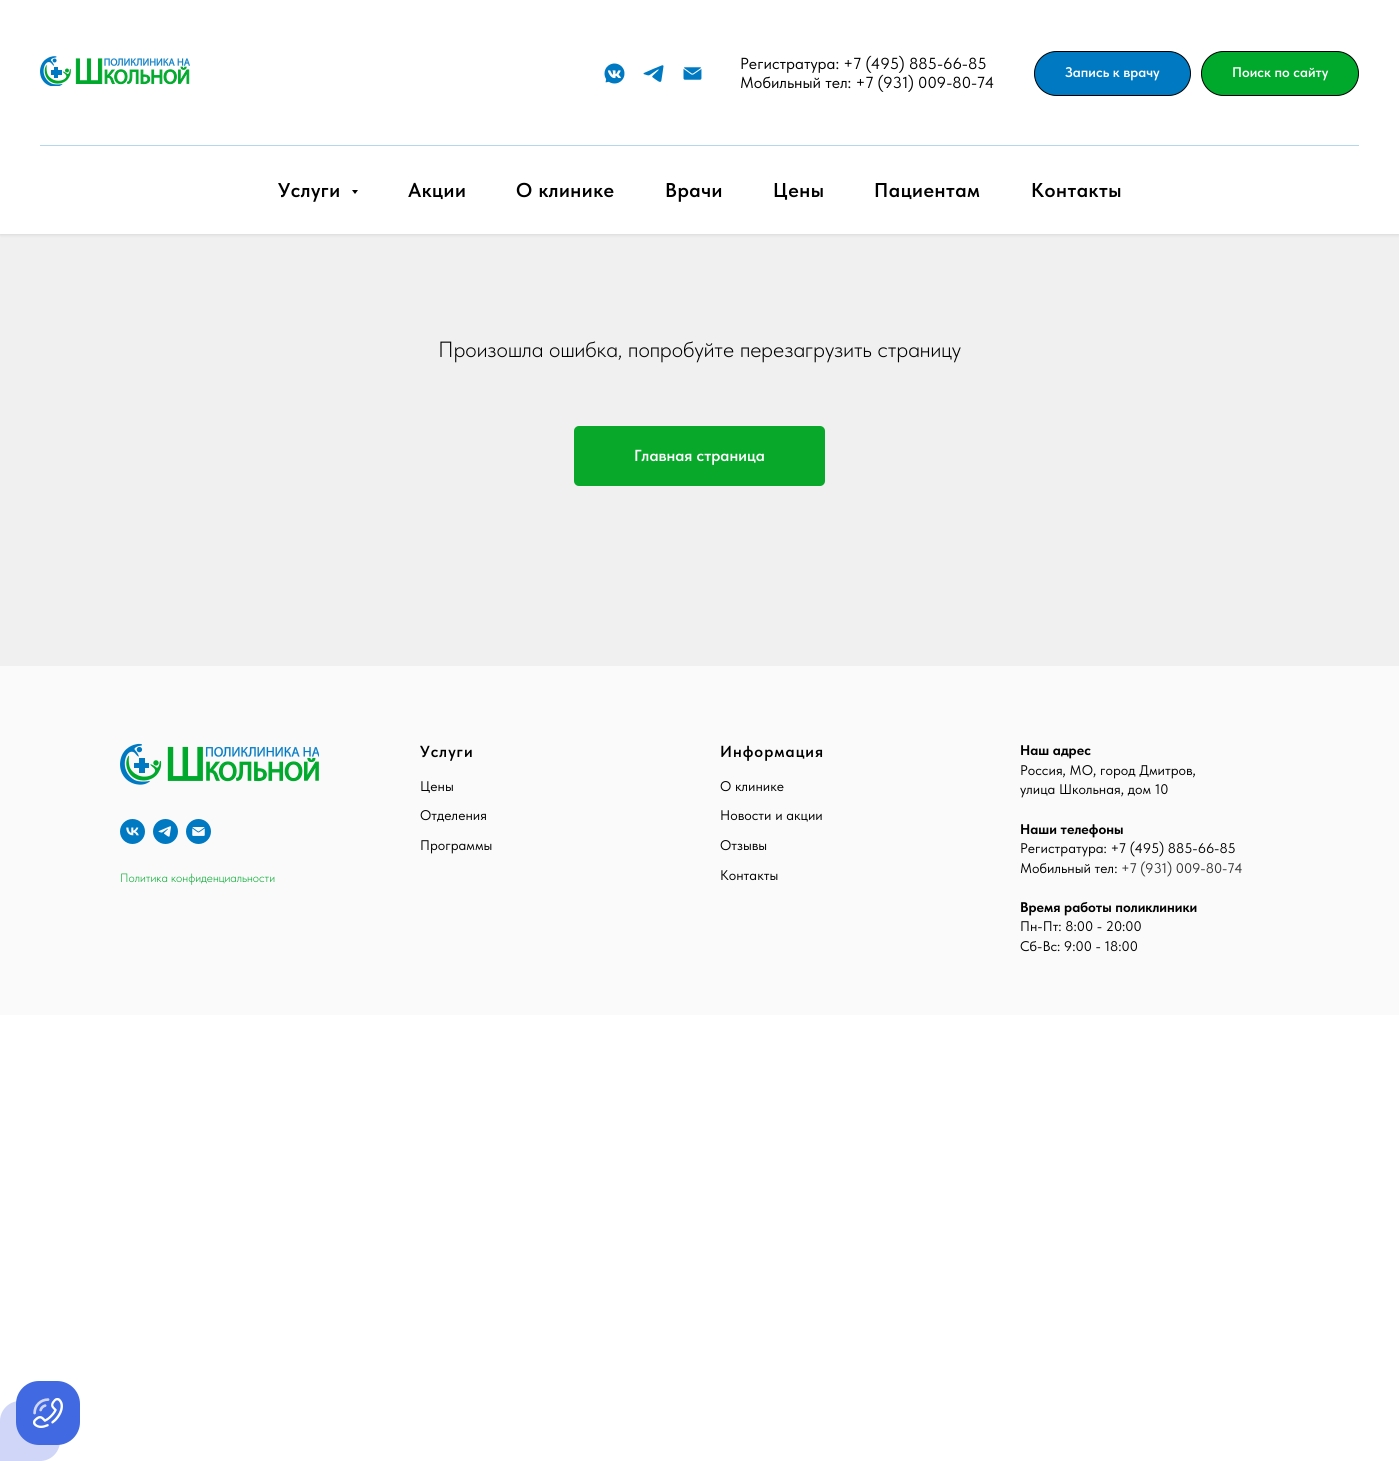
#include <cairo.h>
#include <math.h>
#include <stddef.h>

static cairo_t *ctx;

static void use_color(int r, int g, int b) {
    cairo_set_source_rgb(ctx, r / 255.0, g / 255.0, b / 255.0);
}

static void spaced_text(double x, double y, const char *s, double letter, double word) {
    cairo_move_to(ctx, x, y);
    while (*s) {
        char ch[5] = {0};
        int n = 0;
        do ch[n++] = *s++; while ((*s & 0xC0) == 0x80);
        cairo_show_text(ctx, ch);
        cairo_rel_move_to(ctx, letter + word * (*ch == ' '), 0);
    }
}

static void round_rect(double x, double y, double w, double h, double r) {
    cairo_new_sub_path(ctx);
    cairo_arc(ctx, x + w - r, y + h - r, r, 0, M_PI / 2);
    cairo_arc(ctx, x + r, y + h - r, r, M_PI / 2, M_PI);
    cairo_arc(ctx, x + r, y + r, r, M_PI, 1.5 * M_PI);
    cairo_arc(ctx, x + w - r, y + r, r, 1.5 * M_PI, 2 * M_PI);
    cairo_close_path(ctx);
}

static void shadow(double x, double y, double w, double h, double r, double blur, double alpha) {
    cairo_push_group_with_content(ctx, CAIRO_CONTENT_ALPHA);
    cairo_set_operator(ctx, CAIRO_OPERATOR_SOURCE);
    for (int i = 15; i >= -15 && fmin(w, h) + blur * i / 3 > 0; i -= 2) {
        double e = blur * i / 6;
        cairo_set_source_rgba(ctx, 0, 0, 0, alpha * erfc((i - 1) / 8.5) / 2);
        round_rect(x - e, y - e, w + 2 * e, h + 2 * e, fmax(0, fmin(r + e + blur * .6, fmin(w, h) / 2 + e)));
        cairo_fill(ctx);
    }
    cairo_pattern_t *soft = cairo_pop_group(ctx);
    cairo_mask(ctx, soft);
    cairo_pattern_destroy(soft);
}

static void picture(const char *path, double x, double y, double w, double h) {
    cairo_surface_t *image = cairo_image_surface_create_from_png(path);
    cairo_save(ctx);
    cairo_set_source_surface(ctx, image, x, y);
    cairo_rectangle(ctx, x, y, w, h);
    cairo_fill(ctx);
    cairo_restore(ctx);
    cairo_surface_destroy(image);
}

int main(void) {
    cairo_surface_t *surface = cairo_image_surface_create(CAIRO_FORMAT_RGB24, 1399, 1461);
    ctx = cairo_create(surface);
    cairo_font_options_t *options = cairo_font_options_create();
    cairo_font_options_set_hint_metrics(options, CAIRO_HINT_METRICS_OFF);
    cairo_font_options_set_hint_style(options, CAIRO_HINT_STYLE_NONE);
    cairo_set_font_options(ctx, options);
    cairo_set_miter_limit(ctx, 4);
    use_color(255, 255, 255);
    cairo_paint(ctx);
    use_color(240, 240, 240);
    cairo_rectangle(ctx, 0, 234, 1399, 432);
    cairo_fill(ctx);
    use_color(0, 0, 0);
    shadow(0, 1, 1399, 234, 0, 1.5, 0.1);
    use_color(255, 255, 255);
    cairo_rectangle(ctx, 0, 0, 1399, 234);
    cairo_fill(ctx);
    picture("img1.png", 40, 56, 150, 30);
    picture("img2.png", 604, 63, 21, 21);
    picture("img3.png", 643, 65, 21, 17);
    picture("img4.png", 683, 67, 19, 13);
    cairo_select_font_face(ctx, "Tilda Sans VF", CAIRO_FONT_SLANT_NORMAL, CAIRO_FONT_WEIGHT_NORMAL);
    cairo_set_font_size(ctx, 16);
    use_color(0, 0, 0);
    cairo_move_to(ctx, 740, 69);
    cairo_show_text(ctx, "Регистратура: +7 (495) 885-66-85");
    cairo_move_to(ctx, 740, 88);
    cairo_show_text(ctx, "Мобильный тел: +7 (931) 009-80-74");
    use_color(0, 121, 195);
    round_rect(1034.5, 51.5, 156, 44, 22);
    cairo_fill_preserve(ctx);
    use_color(0, 0, 0);
    cairo_set_line_width(ctx, 1);
    cairo_stroke(ctx);
    cairo_select_font_face(ctx, "Tilda Sans VF SemiBold", CAIRO_FONT_SLANT_NORMAL, CAIRO_FONT_WEIGHT_NORMAL);
    cairo_set_font_size(ctx, 14);
    use_color(255, 255, 255);
    cairo_move_to(ctx, 1065, 77);
    cairo_show_text(ctx, "Запись к врачу");
    use_color(0, 169, 44);
    round_rect(1201.5, 51.5, 157, 44, 22);
    cairo_fill_preserve(ctx);
    use_color(0, 0, 0);
    cairo_stroke(ctx);
    use_color(255, 255, 255);
    cairo_move_to(ctx, 1232, 77);
    cairo_show_text(ctx, "Поиск по сайту");
    use_color(179, 215, 237);
    cairo_rectangle(ctx, 40, 145, 1319, 1);
    cairo_fill(ctx);
    cairo_set_font_size(ctx, 20);
    use_color(0, 0, 0);
    spaced_text(278, 197, "Услуги", 0.5, 0);
    cairo_new_path(ctx);
    cairo_move_to(ctx, 352, 190);
    cairo_line_to(ctx, 358, 190);
    cairo_line_to(ctx, 355, 194);
    cairo_close_path(ctx);
    cairo_fill(ctx);
    spaced_text(408, 197, "Акции", 0.5, 0);
    spaced_text(516, 197, "О клинике", 0.5, 0);
    spaced_text(665, 197, "Врачи", 0.5, 0);
    spaced_text(773, 197, "Цены", 0.5, 0);
    spaced_text(874, 197, "Пациентам", 0.5, 0);
    spaced_text(1031, 197, "Контакты", 0.5, 0);
    cairo_select_font_face(ctx, "Tilda Sans VF Light", CAIRO_FONT_SLANT_NORMAL, CAIRO_FONT_WEIGHT_NORMAL);
    cairo_set_font_size(ctx, 22);
    cairo_move_to(ctx, 438, 357);
    cairo_show_text(ctx, "Произошла ошибка, попробуйте перезагрузить страницу");
    use_color(8, 169, 43);
    round_rect(574, 426, 251, 60, 5);
    cairo_fill(ctx);
    cairo_select_font_face(ctx, "Tilda Sans VF SemiBold", CAIRO_FONT_SLANT_NORMAL, CAIRO_FONT_WEIGHT_NORMAL);
    cairo_set_font_size(ctx, 16);
    use_color(255, 255, 255);
    cairo_move_to(ctx, 634, 461);
    cairo_show_text(ctx, "Главная страница");
    use_color(250, 250, 250);
    cairo_rectangle(ctx, 0, 666, 1399, 349);
    cairo_fill(ctx);
    picture("img5.png", 120, 743, 199, 42);
    picture("img6.png", 120, 819, 25, 25);
    picture("img7.png", 153, 819, 25, 25);
    picture("img8.png", 186, 819, 25, 25);
    cairo_select_font_face(ctx, "Tilda Sans VF Light", CAIRO_FONT_SLANT_NORMAL, CAIRO_FONT_WEIGHT_NORMAL);
    cairo_set_font_size(ctx, 12);
    use_color(0, 169, 44);
    cairo_move_to(ctx, 120, 882);
    cairo_show_text(ctx, "Политика конфиденциальности");
    cairo_select_font_face(ctx, "Tilda Sans VF SemiBold", CAIRO_FONT_SLANT_NORMAL, CAIRO_FONT_WEIGHT_NORMAL);
    cairo_set_font_size(ctx, 16);
    use_color(0, 0, 0);
    spaced_text(420, 757, "Услуги", 1, 0);
    cairo_select_font_face(ctx, "Tilda Sans VF", CAIRO_FONT_SLANT_NORMAL, CAIRO_FONT_WEIGHT_NORMAL);
    cairo_set_font_size(ctx, 14);
    cairo_move_to(ctx, 420, 791);
    cairo_show_text(ctx, "Цены");
    cairo_move_to(ctx, 420, 820);
    cairo_show_text(ctx, "Отделения");
    cairo_move_to(ctx, 420, 850);
    cairo_show_text(ctx, "Программы");
    cairo_select_font_face(ctx, "Tilda Sans VF SemiBold", CAIRO_FONT_SLANT_NORMAL, CAIRO_FONT_WEIGHT_NORMAL);
    cairo_set_font_size(ctx, 16);
    spaced_text(720, 757, "Информация", 1, 0);
    cairo_select_font_face(ctx, "Tilda Sans VF", CAIRO_FONT_SLANT_NORMAL, CAIRO_FONT_WEIGHT_NORMAL);
    cairo_set_font_size(ctx, 14);
    cairo_move_to(ctx, 720, 791);
    cairo_show_text(ctx, "О клинике");
    cairo_move_to(ctx, 720, 820);
    cairo_show_text(ctx, "Новости и акции");
    cairo_move_to(ctx, 720, 850);
    cairo_show_text(ctx, "Отзывы");
    cairo_move_to(ctx, 720, 880);
    cairo_show_text(ctx, "Контакты");
    cairo_select_font_face(ctx, "Tilda Sans VF", CAIRO_FONT_SLANT_NORMAL, CAIRO_FONT_WEIGHT_BOLD);
    cairo_move_to(ctx, 1020, 755);
    cairo_show_text(ctx, "Наш адрес");
    cairo_select_font_face(ctx, "Tilda Sans VF", CAIRO_FONT_SLANT_NORMAL, CAIRO_FONT_WEIGHT_NORMAL);
    cairo_move_to(ctx, 1020, 775);
    cairo_show_text(ctx, "Россия, МО, город Дмитров,");
    cairo_move_to(ctx, 1020, 794);
    cairo_show_text(ctx, "улица Школьная, дом 10");
    cairo_select_font_face(ctx, "Tilda Sans VF", CAIRO_FONT_SLANT_NORMAL, CAIRO_FONT_WEIGHT_BOLD);
    cairo_move_to(ctx, 1020, 834);
    cairo_show_text(ctx, "Наши телефоны");
    cairo_select_font_face(ctx, "Tilda Sans VF", CAIRO_FONT_SLANT_NORMAL, CAIRO_FONT_WEIGHT_NORMAL);
    cairo_move_to(ctx, 1020, 853);
    cairo_show_text(ctx, "Регистратура: +7 (495) 885-66-85");
    cairo_move_to(ctx, 1020, 873);
    cairo_show_text(ctx, "Мобильный тел:");
    use_color(51, 51, 51);
    cairo_move_to(ctx, 1121, 873);
    cairo_show_text(ctx, "+7 (931) 009-80-74");
    cairo_select_font_face(ctx, "Tilda Sans VF", CAIRO_FONT_SLANT_NORMAL, CAIRO_FONT_WEIGHT_BOLD);
    use_color(0, 0, 0);
    cairo_move_to(ctx, 1020, 912);
    cairo_show_text(ctx, "Время работы поликлиники");
    cairo_select_font_face(ctx, "Tilda Sans VF", CAIRO_FONT_SLANT_NORMAL, CAIRO_FONT_WEIGHT_NORMAL);
    cairo_move_to(ctx, 1020, 931);
    cairo_show_text(ctx, "Пн-Пт: 8:00 - 20:00");
    cairo_move_to(ctx, 1020, 951);
    cairo_show_text(ctx, "Сб-Вс: 9:00 - 18:00");
    use_color(207, 214, 247);
    cairo_new_path(ctx);
    cairo_move_to(ctx, 20, 1401);
    cairo_line_to(ctx, 40, 1401);
    cairo_curve_to(ctx, 51, 1401, 60, 1410, 60, 1421);
    cairo_line_to(ctx, 60, 1441);
    cairo_curve_to(ctx, 60, 1452, 51, 1461, 40, 1461);
    cairo_line_to(ctx, 0, 1461);
    cairo_line_to(ctx, 0, 1421);
    cairo_curve_to(ctx, 0, 1410, 9, 1401, 20, 1401);
    cairo_close_path(ctx);
    cairo_fill(ctx);
    use_color(65, 105, 225);
    round_rect(16, 1381, 64, 64, 23);
    cairo_fill(ctx);
    picture("img9.png", 33, 1398, 30, 30);
    picture("img10.png", 33, 1398, 17, 17);
    cairo_surface_write_to_png(surface, "result.png");
    cairo_font_options_destroy(options);
    cairo_destroy(ctx);
    cairo_surface_destroy(surface);
    return 0;
}
